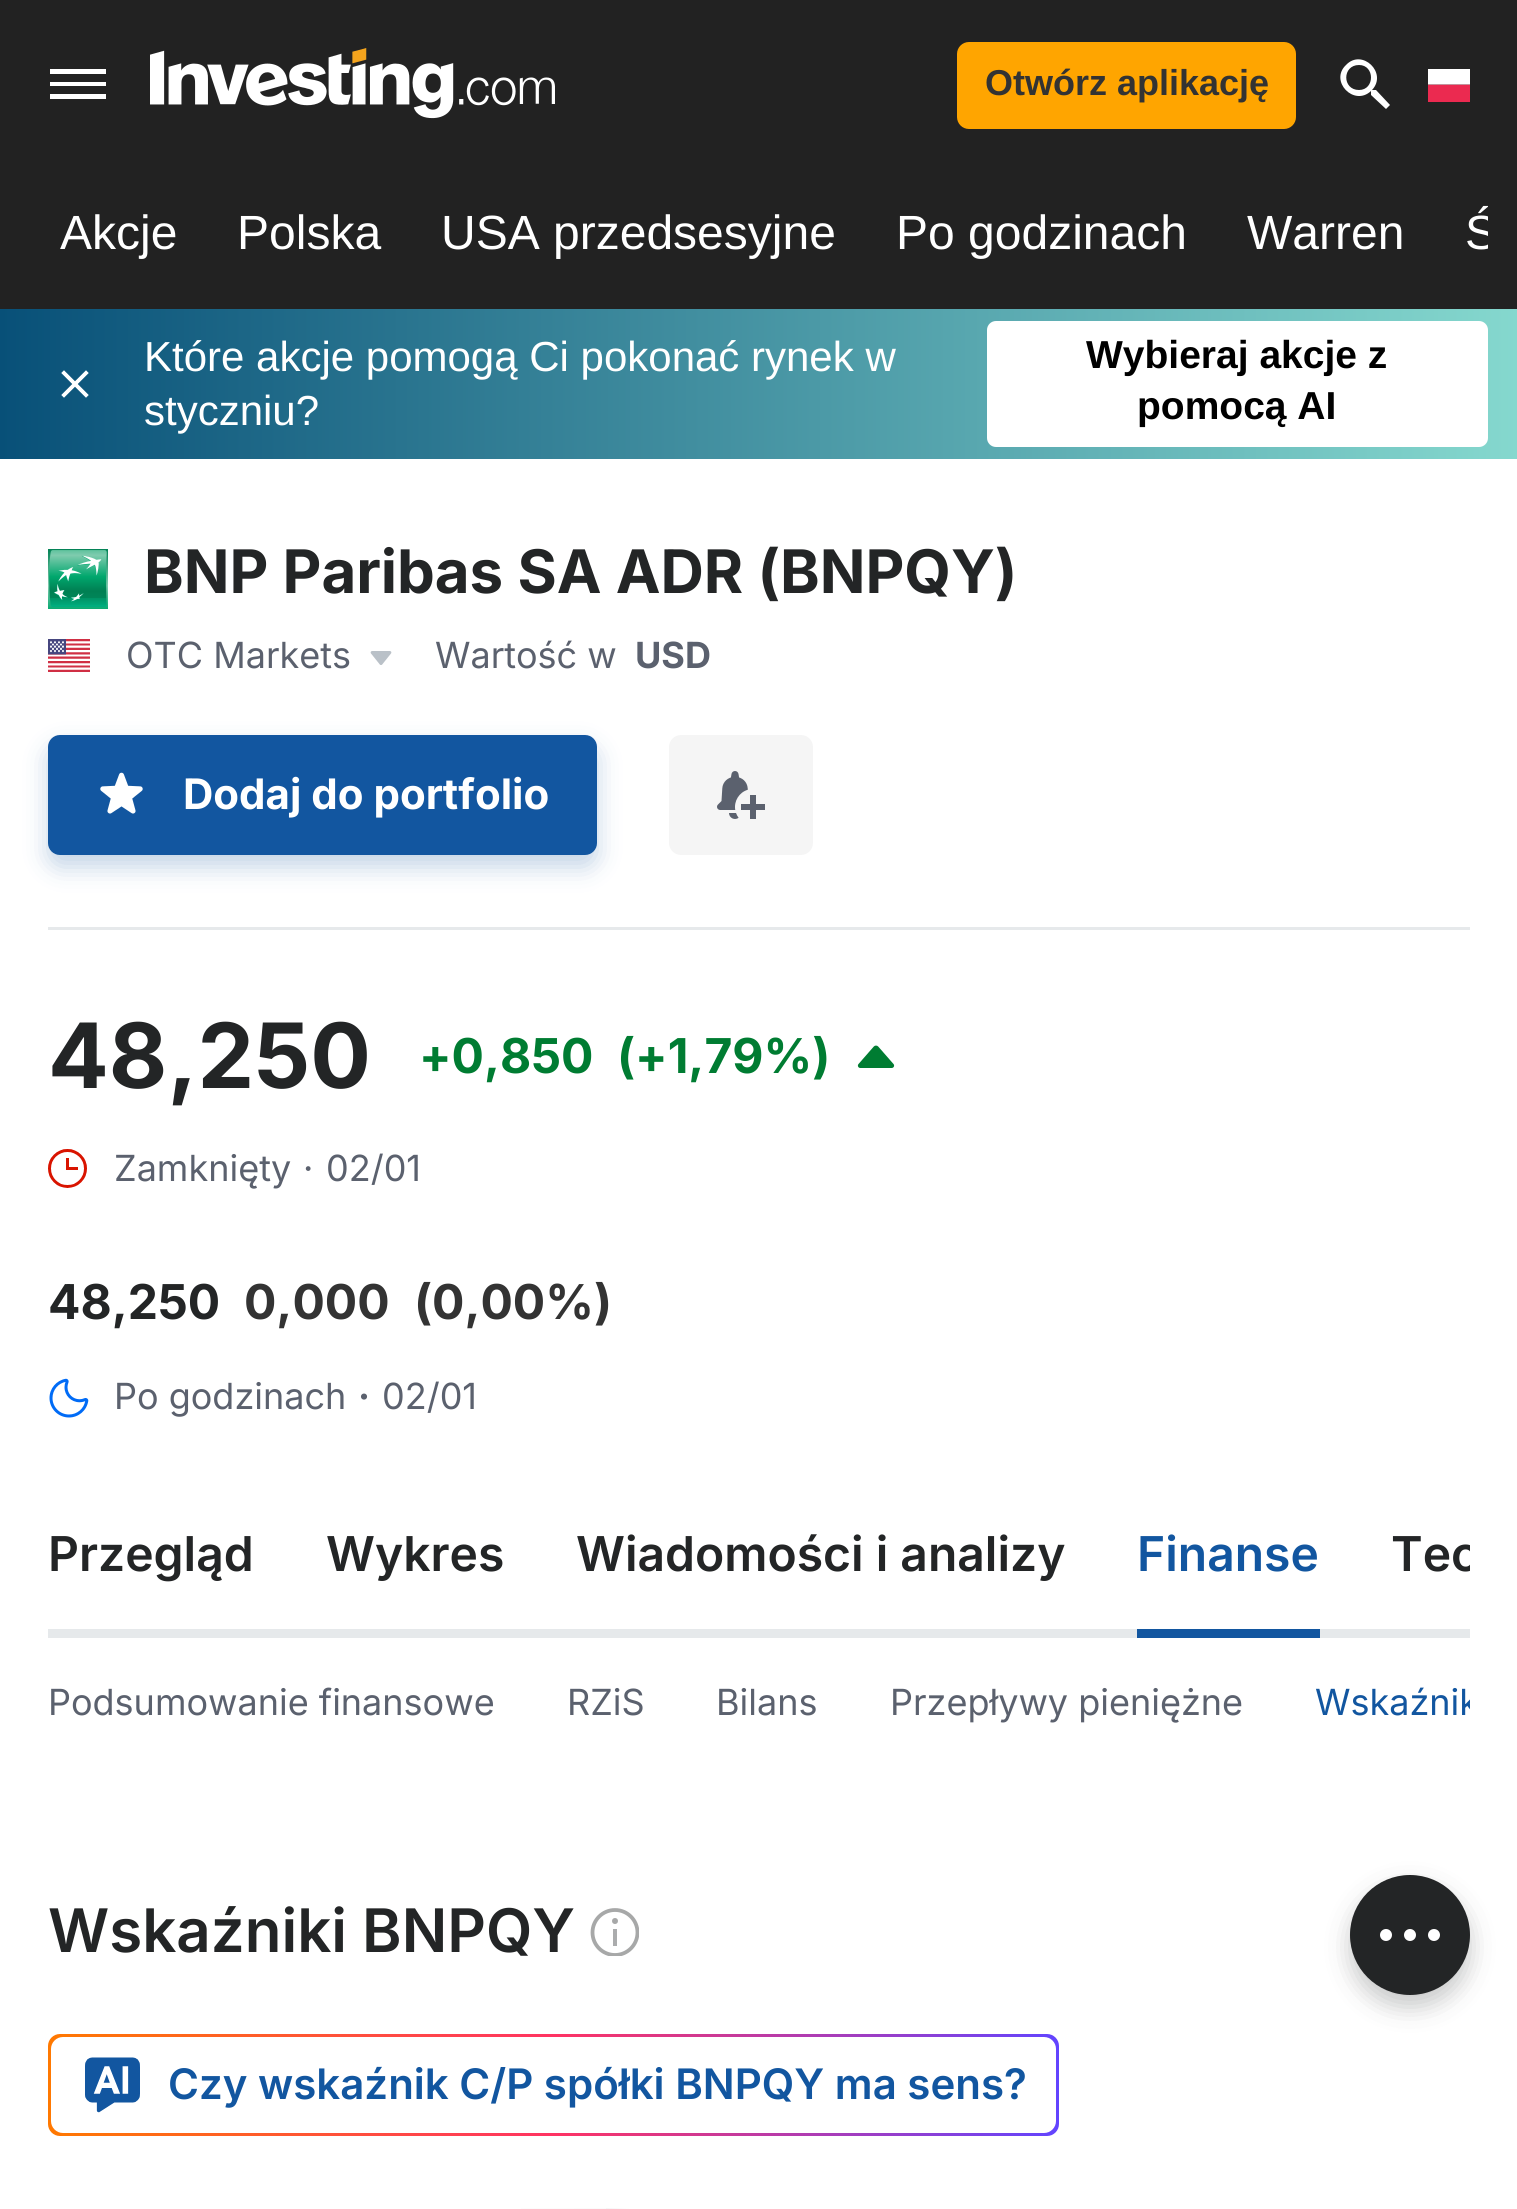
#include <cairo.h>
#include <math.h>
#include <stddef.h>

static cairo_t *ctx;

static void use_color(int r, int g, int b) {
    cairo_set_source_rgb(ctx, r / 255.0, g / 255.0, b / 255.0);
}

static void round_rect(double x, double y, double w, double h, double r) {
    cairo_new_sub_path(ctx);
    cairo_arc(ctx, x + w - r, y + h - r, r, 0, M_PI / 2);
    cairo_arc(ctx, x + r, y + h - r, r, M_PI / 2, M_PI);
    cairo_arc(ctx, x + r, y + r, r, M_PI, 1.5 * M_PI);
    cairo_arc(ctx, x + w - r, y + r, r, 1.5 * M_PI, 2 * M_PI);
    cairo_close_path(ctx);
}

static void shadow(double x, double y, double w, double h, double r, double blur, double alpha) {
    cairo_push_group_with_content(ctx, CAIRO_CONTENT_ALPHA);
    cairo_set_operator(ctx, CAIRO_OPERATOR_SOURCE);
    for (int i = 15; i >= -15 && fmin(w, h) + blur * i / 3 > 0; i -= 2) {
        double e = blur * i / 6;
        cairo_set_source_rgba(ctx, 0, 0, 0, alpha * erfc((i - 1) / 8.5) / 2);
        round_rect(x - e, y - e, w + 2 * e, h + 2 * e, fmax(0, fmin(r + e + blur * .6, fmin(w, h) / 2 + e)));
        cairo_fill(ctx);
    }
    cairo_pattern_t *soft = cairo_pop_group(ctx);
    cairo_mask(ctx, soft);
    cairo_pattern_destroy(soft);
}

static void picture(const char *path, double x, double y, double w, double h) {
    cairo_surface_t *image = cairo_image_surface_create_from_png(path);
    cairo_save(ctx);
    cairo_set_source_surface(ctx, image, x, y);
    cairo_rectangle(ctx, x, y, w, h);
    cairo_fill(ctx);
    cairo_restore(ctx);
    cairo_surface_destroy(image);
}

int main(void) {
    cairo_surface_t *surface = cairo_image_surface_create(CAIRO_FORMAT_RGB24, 1517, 2209);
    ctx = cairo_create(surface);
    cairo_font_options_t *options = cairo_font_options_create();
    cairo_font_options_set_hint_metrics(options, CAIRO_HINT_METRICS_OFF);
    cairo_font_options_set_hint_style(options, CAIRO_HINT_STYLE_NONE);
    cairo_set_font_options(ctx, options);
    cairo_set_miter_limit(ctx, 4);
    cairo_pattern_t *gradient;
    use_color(255, 255, 255);
    cairo_paint(ctx);
    use_color(34, 34, 34);
    cairo_rectangle(ctx, 0, 0, 1517, 309);
    cairo_fill(ctx);
    use_color(255, 255, 255);
    cairo_set_fill_rule(ctx, CAIRO_FILL_RULE_EVEN_ODD);
    cairo_new_path(ctx);
    cairo_move_to(ctx, 50, 99);
    cairo_line_to(ctx, 106, 99);
    cairo_line_to(ctx, 106, 94);
    cairo_line_to(ctx, 50, 94);
    cairo_close_path(ctx);
    cairo_move_to(ctx, 50, 86);
    cairo_line_to(ctx, 106, 86);
    cairo_line_to(ctx, 106, 82);
    cairo_line_to(ctx, 50, 82);
    cairo_close_path(ctx);
    cairo_move_to(ctx, 50, 69);
    cairo_line_to(ctx, 50, 74);
    cairo_line_to(ctx, 106, 74);
    cairo_line_to(ctx, 106, 69);
    cairo_close_path(ctx);
    cairo_fill(ctx);
    picture("img1.png", 150, 48, 405, 71);
    use_color(255, 165, 0);
    round_rect(958.5, 43.5, 336, 84, 10.5);
    cairo_fill_preserve(ctx);
    cairo_set_line_width(ctx, 3);
    cairo_stroke(ctx);
    cairo_select_font_face(ctx, "Liberation Sans", CAIRO_FONT_SLANT_NORMAL, CAIRO_FONT_WEIGHT_BOLD);
    cairo_set_font_size(ctx, 36);
    use_color(51, 51, 51);
    cairo_move_to(ctx, 985, 95);
    cairo_show_text(ctx, "Otwórz aplikację");
    use_color(255, 255, 255);
    cairo_set_fill_rule(ctx, CAIRO_FILL_RULE_WINDING);
    cairo_new_path(ctx);
    cairo_move_to(ctx, 1376, 90);
    cairo_line_to(ctx, 1373, 90);
    cairo_line_to(ctx, 1372, 90);
    cairo_curve_to(ctx, 1388, 73, 1362, 48, 1346, 65);
    cairo_curve_to(ctx, 1329, 81, 1354, 107, 1371, 91);
    cairo_line_to(ctx, 1371, 92);
    cairo_line_to(ctx, 1371, 95);
    cairo_line_to(ctx, 1386, 109);
    cairo_line_to(ctx, 1390, 105);
    cairo_close_path(ctx);
    cairo_move_to(ctx, 1359, 90);
    cairo_curve_to(ctx, 1342, 90, 1342, 65, 1359, 65);
    cairo_curve_to(ctx, 1375, 65, 1375, 90, 1359, 90);
    cairo_close_path(ctx);
    cairo_fill(ctx);
    picture("img2.png", 1428, 69, 42, 33);
    cairo_select_font_face(ctx, "Liberation Sans", CAIRO_FONT_SLANT_NORMAL, CAIRO_FONT_WEIGHT_NORMAL);
    cairo_set_font_size(ctx, 48);
    cairo_move_to(ctx, 60, 249);
    cairo_show_text(ctx, "Akcje");
    cairo_move_to(ctx, 237, 249);
    cairo_show_text(ctx, "Polska");
    cairo_move_to(ctx, 441, 249);
    cairo_show_text(ctx, "USA przedsesyjne");
    cairo_move_to(ctx, 896, 249);
    cairo_show_text(ctx, "Po godzinach");
    cairo_move_to(ctx, 1247, 249);
    cairo_show_text(ctx, "Warren");
    cairo_save(ctx);
    cairo_rectangle(ctx, 30, 168, 1458, 141);
    cairo_clip(ctx);
    cairo_move_to(ctx, 1465, 249);
    cairo_show_text(ctx, "Ś");
    cairo_restore(ctx);
    gradient = cairo_pattern_create_linear(0, 384, 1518, 384);
    cairo_pattern_add_color_stop_rgba(gradient, 0, 0.031, 0.314, 0.471, 1);
    cairo_pattern_add_color_stop_rgba(gradient, 1, 0.522, 0.847, 0.808, 1);
    cairo_set_source(ctx, gradient);
    cairo_pattern_destroy(gradient);
    cairo_rectangle(ctx, 0, 309, 1517, 150);
    cairo_fill(ctx);
    picture("img3.png", 61, 370, 28, 28);
    cairo_set_font_size(ctx, 42);
    use_color(255, 255, 255);
    cairo_move_to(ctx, 144, 371);
    cairo_show_text(ctx, "Które akcje pomogą Ci pokonać rynek w");
    cairo_move_to(ctx, 144, 425);
    cairo_show_text(ctx, "styczniu?");
    round_rect(987, 321, 501, 126, 9);
    cairo_fill(ctx);
    cairo_select_font_face(ctx, "Liberation Sans", CAIRO_FONT_SLANT_NORMAL, CAIRO_FONT_WEIGHT_BOLD);
    cairo_set_font_size(ctx, 39);
    use_color(0, 0, 0);
    cairo_move_to(ctx, 1086, 368);
    cairo_show_text(ctx, "Wybieraj akcje z");
    cairo_move_to(ctx, 1137, 419);
    cairo_show_text(ctx, "pomocą AI");
    picture("img4.png", 48, 549, 60, 60);
    cairo_select_font_face(ctx, "Inter", CAIRO_FONT_SLANT_NORMAL, CAIRO_FONT_WEIGHT_BOLD);
    cairo_set_font_size(ctx, 60);
    use_color(35, 37, 38);
    cairo_move_to(ctx, 144, 593);
    cairo_show_text(ctx, "BNP Paribas SA ADR (BNPQY)");
    picture("img5.png", 48, 639, 42, 33);
    cairo_select_font_face(ctx, "Inter", CAIRO_FONT_SLANT_NORMAL, CAIRO_FONT_WEIGHT_NORMAL);
    cairo_set_font_size(ctx, 36);
    use_color(91, 97, 110);
    cairo_move_to(ctx, 126, 668);
    cairo_show_text(ctx, "OTC Markets");
    picture("img6.png", 370, 651, 22, 14);
    cairo_move_to(ctx, 435, 668);
    cairo_show_text(ctx, "Wartość w");
    cairo_select_font_face(ctx, "Inter", CAIRO_FONT_SLANT_NORMAL, CAIRO_FONT_WEIGHT_BOLD);
    cairo_move_to(ctx, 635, 668);
    cairo_show_text(ctx, "USD");
    use_color(18, 86, 160);
    shadow(48, 747, 549, 120, 12, 12, 0.25);
    use_color(18, 86, 160);
    round_rect(48, 735, 549, 120, 12);
    cairo_fill(ctx);
    picture("img7.png", 100, 772, 43, 42);
    cairo_set_font_size(ctx, 42);
    use_color(255, 255, 255);
    cairo_move_to(ctx, 183, 809);
    cairo_show_text(ctx, "Dodaj do portfolio");
    use_color(245, 245, 245);
    round_rect(669, 735, 144, 120, 12);
    cairo_fill(ctx);
    picture("img8.png", 717, 771, 48, 48);
    use_color(230, 233, 235);
    cairo_rectangle(ctx, 48, 927, 1422, 3);
    cairo_fill(ctx);
    cairo_set_font_size(ctx, 90);
    use_color(35, 37, 38);
    cairo_move_to(ctx, 48, 1088);
    cairo_show_text(ctx, "48,250");
    cairo_set_font_size(ctx, 48);
    use_color(0, 124, 50);
    cairo_move_to(ctx, 419, 1073);
    cairo_show_text(ctx, "+0,850");
    cairo_move_to(ctx, 617, 1073);
    cairo_show_text(ctx, "(+1,79%)");
    picture("img9.png", 857, 1045, 38, 23);
    picture("img10.png", 48, 1149, 39, 39);
    cairo_select_font_face(ctx, "Inter", CAIRO_FONT_SLANT_NORMAL, CAIRO_FONT_WEIGHT_NORMAL);
    cairo_set_font_size(ctx, 36);
    use_color(91, 97, 110);
    cairo_move_to(ctx, 114, 1181);
    cairo_show_text(ctx, "Zamknięty");
    cairo_move_to(ctx, 303, 1181);
    cairo_show_text(ctx, "·");
    cairo_move_to(ctx, 326, 1181);
    cairo_show_text(ctx, "02/01");
    cairo_select_font_face(ctx, "Inter", CAIRO_FONT_SLANT_NORMAL, CAIRO_FONT_WEIGHT_BOLD);
    cairo_set_font_size(ctx, 48);
    use_color(35, 37, 38);
    cairo_move_to(ctx, 48, 1319);
    cairo_show_text(ctx, "48,250");
    use_color(51, 51, 51);
    cairo_move_to(ctx, 244, 1319);
    cairo_show_text(ctx, "0,000");
    cairo_move_to(ctx, 414, 1319);
    cairo_show_text(ctx, "(0,00%)");
    picture("img11.png", 49, 1378, 40, 40);
    cairo_select_font_face(ctx, "Inter", CAIRO_FONT_SLANT_NORMAL, CAIRO_FONT_WEIGHT_NORMAL);
    cairo_set_font_size(ctx, 36);
    use_color(91, 97, 110);
    cairo_move_to(ctx, 114, 1409);
    cairo_show_text(ctx, "Po godzinach");
    cairo_select_font_face(ctx, "Inter", CAIRO_FONT_SLANT_NORMAL, CAIRO_FONT_WEIGHT_BOLD);
    cairo_move_to(ctx, 358, 1409);
    cairo_show_text(ctx, "·");
    cairo_select_font_face(ctx, "Inter", CAIRO_FONT_SLANT_NORMAL, CAIRO_FONT_WEIGHT_NORMAL);
    cairo_move_to(ctx, 382, 1409);
    cairo_show_text(ctx, "02/01");
    use_color(230, 233, 235);
    cairo_rectangle(ctx, 48, 1629, 1422, 9);
    cairo_fill(ctx);
    cairo_select_font_face(ctx, "Inter SemiBold", CAIRO_FONT_SLANT_NORMAL, CAIRO_FONT_WEIGHT_NORMAL);
    cairo_set_font_size(ctx, 48);
    use_color(35, 37, 38);
    cairo_move_to(ctx, 48, 1571);
    cairo_show_text(ctx, "Przegląd");
    cairo_move_to(ctx, 326, 1571);
    cairo_show_text(ctx, "Wykres");
    cairo_move_to(ctx, 576, 1571);
    cairo_show_text(ctx, "Wiadomości i analizy");
    use_color(18, 86, 160);
    cairo_rectangle(ctx, 1137, 1629, 183, 9);
    cairo_fill(ctx);
    cairo_move_to(ctx, 1137, 1571);
    cairo_show_text(ctx, "Finanse");
    cairo_save(ctx);
    cairo_rectangle(ctx, 48, 1470, 1422, 168);
    cairo_clip(ctx);
    use_color(35, 37, 38);
    cairo_move_to(ctx, 1391, 1571);
    cairo_show_text(ctx, "Tec");
    cairo_restore(ctx);
    cairo_select_font_face(ctx, "Inter", CAIRO_FONT_SLANT_NORMAL, CAIRO_FONT_WEIGHT_NORMAL);
    cairo_set_font_size(ctx, 36);
    use_color(91, 97, 110);
    cairo_move_to(ctx, 48, 1715);
    cairo_show_text(ctx, "Podsumowanie finansowe");
    cairo_move_to(ctx, 567, 1715);
    cairo_show_text(ctx, "RZiS");
    cairo_move_to(ctx, 716, 1715);
    cairo_show_text(ctx, "Bilans");
    cairo_move_to(ctx, 890, 1715);
    cairo_show_text(ctx, "Przepływy pieniężne");
    cairo_save(ctx);
    cairo_rectangle(ctx, 48, 1638, 1422, 132);
    cairo_clip(ctx);
    use_color(18, 86, 160);
    cairo_move_to(ctx, 1315, 1715);
    cairo_show_text(ctx, "Wskaźnik");
    cairo_restore(ctx);
    cairo_select_font_face(ctx, "Inter SemiBold", CAIRO_FONT_SLANT_NORMAL, CAIRO_FONT_WEIGHT_NORMAL);
    cairo_set_font_size(ctx, 60);
    use_color(35, 37, 38);
    cairo_move_to(ctx, 48, 1952);
    cairo_show_text(ctx, "Wskaźniki BNPQY");
    cairo_save(ctx);
    cairo_rectangle(ctx, 588, 1905, 51, 51);
    cairo_clip(ctx);
    cairo_arc(ctx, 615, 1932.5, 22.5, 0, 2 * M_PI);
    use_color(167, 168, 168);
    cairo_set_line_width(ctx, 3.8);
    cairo_stroke(ctx);
    cairo_restore(ctx);
    use_color(171, 172, 173);
    cairo_rectangle(ctx, 613, 1929, 4, 17);
    cairo_fill(ctx);
    use_color(167, 168, 168);
    cairo_set_fill_rule(ctx, CAIRO_FILL_RULE_EVEN_ODD);
    cairo_new_path(ctx);
    cairo_move_to(ctx, 612, 1921);
    cairo_curve_to(ctx, 612, 1917, 618, 1917, 618, 1921);
    cairo_curve_to(ctx, 618, 1925, 612, 1925, 612, 1921);
    cairo_fill(ctx);
    gradient = cairo_pattern_create_linear(48, 2085, 1059, 2085);
    cairo_pattern_add_color_stop_rgba(gradient, 0, 1, 0.475, 0.004, 1);
    cairo_pattern_add_color_stop_rgba(gradient, 0.5, 1, 0.2, 0.388, 1);
    cairo_pattern_add_color_stop_rgba(gradient, 1, 0.384, 0.267, 1, 1);
    cairo_set_source(ctx, gradient);
    cairo_pattern_destroy(gradient);
    round_rect(48, 2034, 1011, 102, 12);
    cairo_fill(ctx);
    use_color(255, 255, 255);
    round_rect(51, 2037, 1005, 96, 12);
    cairo_fill(ctx);
    picture("img12.png", 85, 2057, 55, 56);
    cairo_set_font_size(ctx, 42);
    use_color(18, 86, 160);
    cairo_move_to(ctx, 168, 2099);
    cairo_show_text(ctx, "Czy wskaźnik C/P spółki BNPQY ma sens?");
    gradient = cairo_pattern_create_linear(378, 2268, 606, 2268);
    cairo_pattern_add_color_stop_rgba(gradient, 0, 1, 1, 1, 1);
    cairo_pattern_add_color_stop_rgba(gradient, 1, 0.984, 0.984, 0.984, 1);
    cairo_set_source(ctx, gradient);
    cairo_pattern_destroy(gradient);
    cairo_rectangle(ctx, 521, 2208, 85, 1);
    cairo_fill(ctx);
    gradient = cairo_pattern_create_linear(606, 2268, 630, 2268);
    cairo_pattern_add_color_stop_rgba(gradient, 0, 0.961, 0.961, 0.965, 1);
    cairo_pattern_add_color_stop_rgba(gradient, 1, 1, 1, 1, 1);
    cairo_set_source(ctx, gradient);
    cairo_pattern_destroy(gradient);
    cairo_rectangle(ctx, 606, 2208, 24, 1);
    cairo_fill(ctx);
    use_color(35, 37, 38);
    shadow(1350, 1887, 120, 120, 60, 12, 0.25);
    use_color(35, 37, 38);
    cairo_arc(ctx, 1410, 1935, 60, 0, 2 * M_PI);
    cairo_fill(ctx);
    use_color(255, 255, 255);
    cairo_arc(ctx, 1434, 1935, 6, 0, 2 * M_PI);
    cairo_fill(ctx);
    cairo_arc(ctx, 1386, 1935, 6, 0, 2 * M_PI);
    cairo_fill(ctx);
    cairo_arc(ctx, 1410, 1935, 6, 0, 2 * M_PI);
    cairo_fill(ctx);
    cairo_surface_write_to_png(surface, "result.png");
    cairo_font_options_destroy(options);
    cairo_destroy(ctx);
    cairo_surface_destroy(surface);
    return 0;
}
